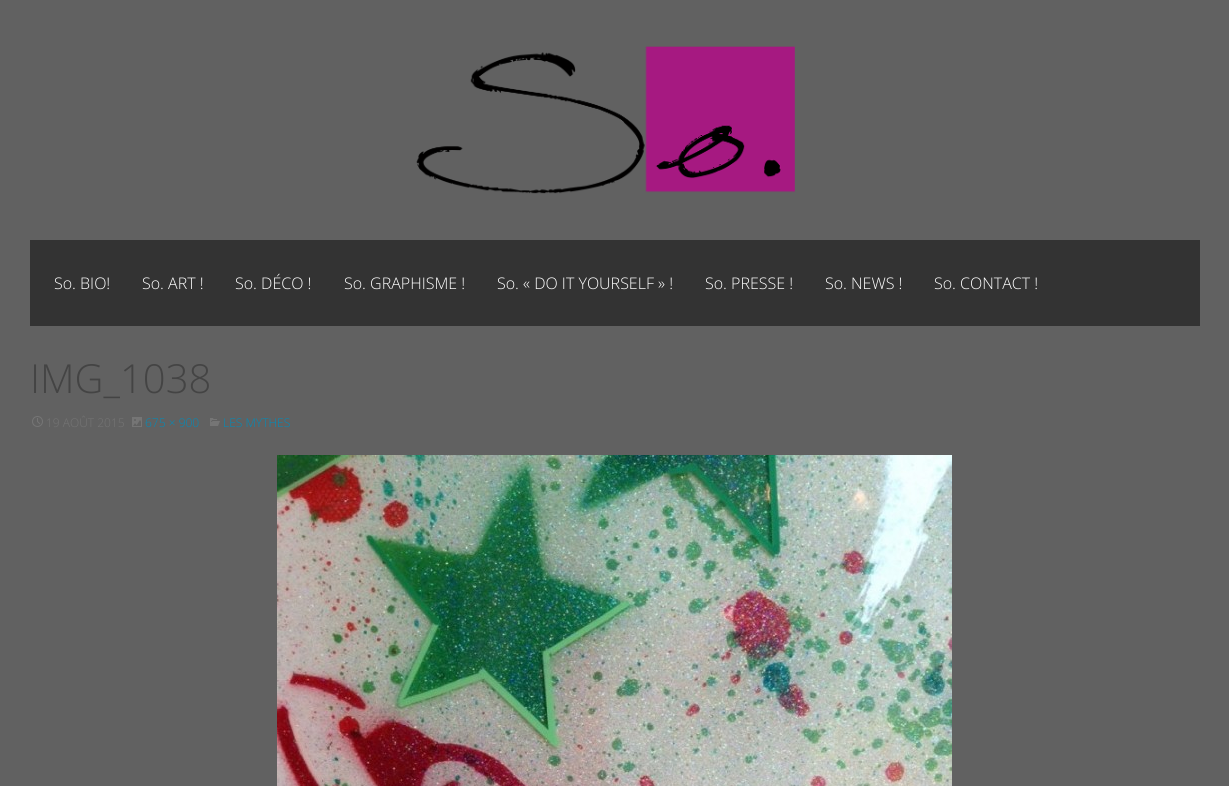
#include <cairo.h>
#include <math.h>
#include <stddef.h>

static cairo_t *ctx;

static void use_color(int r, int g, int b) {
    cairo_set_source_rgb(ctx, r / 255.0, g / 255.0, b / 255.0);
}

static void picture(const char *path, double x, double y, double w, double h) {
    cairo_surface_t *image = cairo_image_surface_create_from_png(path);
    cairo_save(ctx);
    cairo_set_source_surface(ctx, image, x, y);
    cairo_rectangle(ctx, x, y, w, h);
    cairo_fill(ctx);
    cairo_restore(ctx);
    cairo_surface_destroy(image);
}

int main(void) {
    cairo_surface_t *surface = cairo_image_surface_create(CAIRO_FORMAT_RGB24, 1229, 786);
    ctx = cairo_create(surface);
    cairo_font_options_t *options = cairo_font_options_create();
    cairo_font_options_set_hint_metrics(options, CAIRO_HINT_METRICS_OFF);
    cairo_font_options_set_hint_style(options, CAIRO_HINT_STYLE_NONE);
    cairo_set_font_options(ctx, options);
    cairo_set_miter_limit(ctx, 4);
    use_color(97, 97, 97);
    cairo_paint(ctx);
    picture("img1.png", 416, 46, 379, 148);
    use_color(51, 51, 51);
    cairo_rectangle(ctx, 30, 240, 1170, 86);
    cairo_fill(ctx);
    cairo_select_font_face(ctx, "Open Sans Light", CAIRO_FONT_SLANT_NORMAL, CAIRO_FONT_WEIGHT_NORMAL);
    cairo_set_font_size(ctx, 16);
    use_color(255, 255, 255);
    cairo_move_to(ctx, 54, 289);
    cairo_show_text(ctx, "So. BIO!");
    cairo_move_to(ctx, 142, 289);
    cairo_show_text(ctx, "So. ART !");
    cairo_move_to(ctx, 235, 289);
    cairo_show_text(ctx, "So. DÉCO !");
    cairo_move_to(ctx, 344, 289);
    cairo_show_text(ctx, "So. GRAPHISME !");
    cairo_move_to(ctx, 497, 289);
    cairo_show_text(ctx, "So. « DO IT YOURSELF » !");
    cairo_move_to(ctx, 705, 289);
    cairo_show_text(ctx, "So. PRESSE !");
    cairo_move_to(ctx, 825, 289);
    cairo_show_text(ctx, "So. NEWS !");
    cairo_move_to(ctx, 934, 289);
    cairo_show_text(ctx, "So. CONTACT !");
    cairo_set_font_size(ctx, 40);
    use_color(68, 68, 68);
    cairo_move_to(ctx, 30, 393);
    cairo_show_text(ctx, "IMG_1038");
    picture("img2.png", 32, 416, 11, 11);
    cairo_set_font_size(ctx, 12);
    use_color(117, 117, 117);
    cairo_move_to(ctx, 46, 427);
    cairo_show_text(ctx, "19 AOÛT 2015");
    picture("img3.png", 132, 417, 10, 10);
    use_color(0, 140, 186);
    cairo_move_to(ctx, 145, 427);
    cairo_show_text(ctx, "675 × 900");
    picture("img4.png", 210, 418, 10, 8);
    cairo_move_to(ctx, 223, 427);
    cairo_show_text(ctx, "LES MYTHES");
    picture("img5.png", 277, 455, 675, 331);
    cairo_surface_write_to_png(surface, "result.png");
    cairo_font_options_destroy(options);
    cairo_destroy(ctx);
    cairo_surface_destroy(surface);
    return 0;
}
